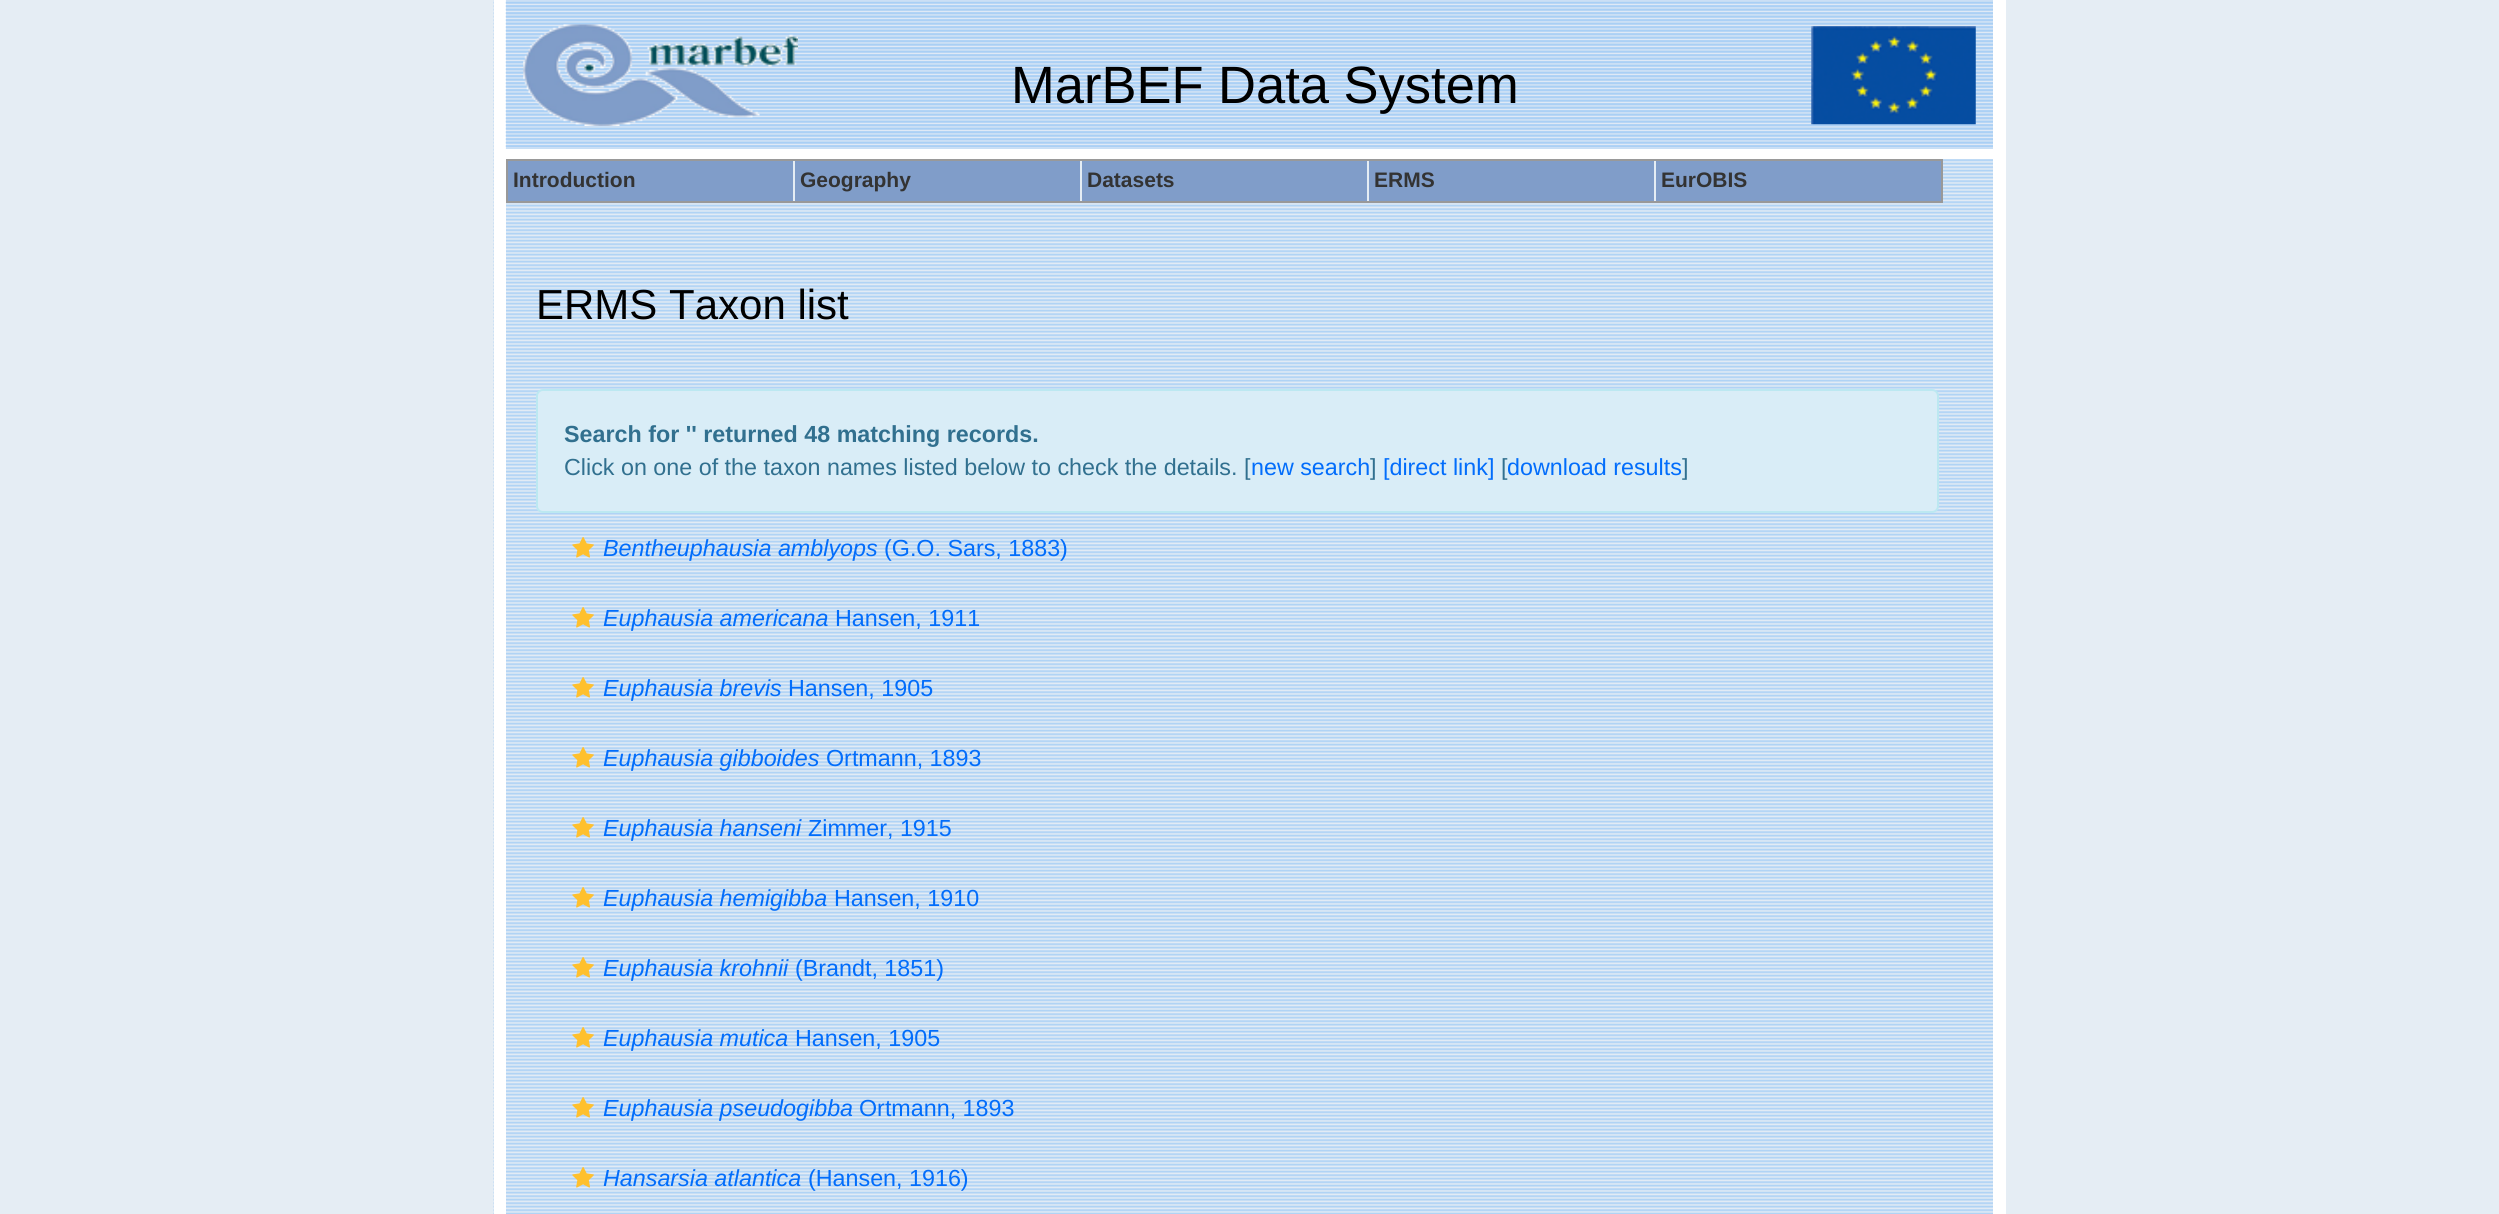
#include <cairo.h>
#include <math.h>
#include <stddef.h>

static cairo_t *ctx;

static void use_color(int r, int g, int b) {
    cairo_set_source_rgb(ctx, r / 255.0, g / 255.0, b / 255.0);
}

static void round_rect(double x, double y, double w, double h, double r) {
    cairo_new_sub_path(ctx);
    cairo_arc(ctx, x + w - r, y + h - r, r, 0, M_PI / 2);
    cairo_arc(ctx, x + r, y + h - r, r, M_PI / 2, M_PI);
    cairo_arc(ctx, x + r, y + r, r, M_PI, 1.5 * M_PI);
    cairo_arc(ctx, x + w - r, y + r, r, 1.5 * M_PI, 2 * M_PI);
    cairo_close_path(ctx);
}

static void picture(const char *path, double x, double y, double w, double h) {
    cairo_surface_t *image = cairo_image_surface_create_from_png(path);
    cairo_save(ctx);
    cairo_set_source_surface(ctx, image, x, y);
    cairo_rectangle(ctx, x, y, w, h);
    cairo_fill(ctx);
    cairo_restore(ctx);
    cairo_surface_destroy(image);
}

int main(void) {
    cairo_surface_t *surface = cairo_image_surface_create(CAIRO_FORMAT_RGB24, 2499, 1214);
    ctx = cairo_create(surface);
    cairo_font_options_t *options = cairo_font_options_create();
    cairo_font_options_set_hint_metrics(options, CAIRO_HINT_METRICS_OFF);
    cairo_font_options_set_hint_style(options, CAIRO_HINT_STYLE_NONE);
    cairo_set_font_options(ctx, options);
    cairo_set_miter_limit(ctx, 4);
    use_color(229, 237, 244);
    cairo_paint(ctx);
    picture("img1.png", 493, 0, 1500, 1214);
    use_color(255, 255, 255);
    cairo_rectangle(ctx, 494, 0, 12, 1214);
    cairo_fill(ctx);
    picture("img2.png", 505, 0, 1488, 149);
    picture("img3.png", 523, 24, 275, 102);
    cairo_select_font_face(ctx, "Liberation Sans", CAIRO_FONT_SLANT_NORMAL, CAIRO_FONT_WEIGHT_NORMAL);
    cairo_set_font_size(ctx, 52.5);
    use_color(0, 0, 0);
    cairo_move_to(ctx, 1011, 103);
    cairo_show_text(ctx, "MarBEF Data System");
    picture("img4.png", 1811, 26, 165, 99);
    use_color(255, 255, 255);
    cairo_rectangle(ctx, 506, 149, 1487, 10);
    cairo_fill(ctx);
    use_color(128, 157, 201);
    cairo_rectangle(ctx, 507, 160, 1435, 42);
    cairo_fill_preserve(ctx);
    use_color(153, 153, 153);
    cairo_stroke(ctx);
    cairo_select_font_face(ctx, "Liberation Sans", CAIRO_FONT_SLANT_NORMAL, CAIRO_FONT_WEIGHT_BOLD);
    cairo_set_font_size(ctx, 21);
    use_color(51, 51, 51);
    cairo_move_to(ctx, 513, 187);
    cairo_show_text(ctx, "Introduction");
    use_color(229, 237, 244);
    cairo_rectangle(ctx, 793, 161, 2, 40);
    cairo_fill(ctx);
    use_color(51, 51, 51);
    cairo_move_to(ctx, 800, 187);
    cairo_show_text(ctx, "Geography");
    use_color(229, 237, 244);
    cairo_rectangle(ctx, 1080, 161, 2, 40);
    cairo_fill(ctx);
    use_color(51, 51, 51);
    cairo_move_to(ctx, 1087, 187);
    cairo_show_text(ctx, "Datasets");
    use_color(229, 237, 244);
    cairo_rectangle(ctx, 1367, 161, 2, 40);
    cairo_fill(ctx);
    use_color(51, 51, 51);
    cairo_move_to(ctx, 1374, 187);
    cairo_show_text(ctx, "ERMS");
    use_color(229, 237, 244);
    cairo_rectangle(ctx, 1654, 161, 2, 40);
    cairo_fill(ctx);
    use_color(51, 51, 51);
    cairo_move_to(ctx, 1661, 187);
    cairo_show_text(ctx, "EurOBIS");
    cairo_select_font_face(ctx, "Liberation Sans", CAIRO_FONT_SLANT_NORMAL, CAIRO_FONT_WEIGHT_NORMAL);
    cairo_set_font_size(ctx, 42);
    use_color(0, 0, 0);
    cairo_move_to(ctx, 536, 319);
    cairo_show_text(ctx, "ERMS Taxon list");
    use_color(217, 237, 247);
    round_rect(537, 390, 1401, 122, 6);
    cairo_fill_preserve(ctx);
    use_color(188, 232, 241);
    cairo_stroke(ctx);
    cairo_select_font_face(ctx, "Liberation Sans", CAIRO_FONT_SLANT_NORMAL, CAIRO_FONT_WEIGHT_BOLD);
    cairo_set_font_size(ctx, 23.3);
    use_color(49, 112, 143);
    cairo_move_to(ctx, 564, 442);
    cairo_show_text(ctx, "Search for '' returned 48 matching records.");
    cairo_select_font_face(ctx, "Liberation Sans", CAIRO_FONT_SLANT_NORMAL, CAIRO_FONT_WEIGHT_NORMAL);
    cairo_move_to(ctx, 564, 475);
    cairo_show_text(ctx, "Click on one of the taxon names listed below to check the details. [");
    use_color(2, 109, 251);
    cairo_move_to(ctx, 1251, 475);
    cairo_show_text(ctx, "new search");
    use_color(49, 112, 143);
    cairo_move_to(ctx, 1370, 475);
    cairo_show_text(ctx, "]");
    use_color(2, 109, 251);
    cairo_move_to(ctx, 1383, 475);
    cairo_show_text(ctx, "[direct link]");
    use_color(49, 112, 143);
    cairo_move_to(ctx, 1501, 475);
    cairo_show_text(ctx, "[");
    use_color(2, 109, 251);
    cairo_move_to(ctx, 1507, 475);
    cairo_show_text(ctx, "download results");
    use_color(49, 112, 143);
    cairo_move_to(ctx, 1682, 475);
    cairo_show_text(ctx, "]");
    picture("img5.png", 572, 537, 22, 21);
    cairo_select_font_face(ctx, "Liberation Sans", CAIRO_FONT_SLANT_ITALIC, CAIRO_FONT_WEIGHT_NORMAL);
    use_color(2, 109, 251);
    cairo_move_to(ctx, 603, 556);
    cairo_show_text(ctx, "Bentheuphausia amblyops");
    cairo_select_font_face(ctx, "Liberation Sans", CAIRO_FONT_SLANT_NORMAL, CAIRO_FONT_WEIGHT_NORMAL);
    cairo_move_to(ctx, 884, 556);
    cairo_show_text(ctx, "(G.O. Sars, 1883)");
    picture("img5.png", 572, 607, 22, 21);
    cairo_select_font_face(ctx, "Liberation Sans", CAIRO_FONT_SLANT_ITALIC, CAIRO_FONT_WEIGHT_NORMAL);
    cairo_move_to(ctx, 603, 626);
    cairo_show_text(ctx, "Euphausia americana");
    cairo_select_font_face(ctx, "Liberation Sans", CAIRO_FONT_SLANT_NORMAL, CAIRO_FONT_WEIGHT_NORMAL);
    cairo_move_to(ctx, 835, 626);
    cairo_show_text(ctx, "Hansen, 1911");
    picture("img5.png", 572, 677, 22, 21);
    cairo_select_font_face(ctx, "Liberation Sans", CAIRO_FONT_SLANT_ITALIC, CAIRO_FONT_WEIGHT_NORMAL);
    cairo_move_to(ctx, 603, 696);
    cairo_show_text(ctx, "Euphausia brevis");
    cairo_select_font_face(ctx, "Liberation Sans", CAIRO_FONT_SLANT_NORMAL, CAIRO_FONT_WEIGHT_NORMAL);
    cairo_move_to(ctx, 788, 696);
    cairo_show_text(ctx, "Hansen, 1905");
    picture("img5.png", 572, 747, 22, 21);
    cairo_select_font_face(ctx, "Liberation Sans", CAIRO_FONT_SLANT_ITALIC, CAIRO_FONT_WEIGHT_NORMAL);
    cairo_move_to(ctx, 603, 766);
    cairo_show_text(ctx, "Euphausia gibboides");
    cairo_select_font_face(ctx, "Liberation Sans", CAIRO_FONT_SLANT_NORMAL, CAIRO_FONT_WEIGHT_NORMAL);
    cairo_move_to(ctx, 826, 766);
    cairo_show_text(ctx, "Ortmann, 1893");
    picture("img5.png", 572, 817, 22, 21);
    cairo_select_font_face(ctx, "Liberation Sans", CAIRO_FONT_SLANT_ITALIC, CAIRO_FONT_WEIGHT_NORMAL);
    cairo_move_to(ctx, 603, 836);
    cairo_show_text(ctx, "Euphausia hanseni");
    cairo_select_font_face(ctx, "Liberation Sans", CAIRO_FONT_SLANT_NORMAL, CAIRO_FONT_WEIGHT_NORMAL);
    cairo_move_to(ctx, 808, 836);
    cairo_show_text(ctx, "Zimmer, 1915");
    picture("img5.png", 572, 887, 22, 21);
    cairo_select_font_face(ctx, "Liberation Sans", CAIRO_FONT_SLANT_ITALIC, CAIRO_FONT_WEIGHT_NORMAL);
    cairo_move_to(ctx, 603, 906);
    cairo_show_text(ctx, "Euphausia hemigibba");
    cairo_select_font_face(ctx, "Liberation Sans", CAIRO_FONT_SLANT_NORMAL, CAIRO_FONT_WEIGHT_NORMAL);
    cairo_move_to(ctx, 834, 906);
    cairo_show_text(ctx, "Hansen, 1910");
    picture("img5.png", 572, 957, 22, 21);
    cairo_select_font_face(ctx, "Liberation Sans", CAIRO_FONT_SLANT_ITALIC, CAIRO_FONT_WEIGHT_NORMAL);
    cairo_move_to(ctx, 603, 976);
    cairo_show_text(ctx, "Euphausia krohnii");
    cairo_select_font_face(ctx, "Liberation Sans", CAIRO_FONT_SLANT_NORMAL, CAIRO_FONT_WEIGHT_NORMAL);
    cairo_move_to(ctx, 795, 976);
    cairo_show_text(ctx, "(Brandt, 1851)");
    picture("img5.png", 572, 1027, 22, 21);
    cairo_select_font_face(ctx, "Liberation Sans", CAIRO_FONT_SLANT_ITALIC, CAIRO_FONT_WEIGHT_NORMAL);
    cairo_move_to(ctx, 603, 1046);
    cairo_show_text(ctx, "Euphausia mutica");
    cairo_select_font_face(ctx, "Liberation Sans", CAIRO_FONT_SLANT_NORMAL, CAIRO_FONT_WEIGHT_NORMAL);
    cairo_move_to(ctx, 795, 1046);
    cairo_show_text(ctx, "Hansen, 1905");
    picture("img5.png", 572, 1097, 22, 21);
    cairo_select_font_face(ctx, "Liberation Sans", CAIRO_FONT_SLANT_ITALIC, CAIRO_FONT_WEIGHT_NORMAL);
    cairo_move_to(ctx, 603, 1116);
    cairo_show_text(ctx, "Euphausia pseudogibba");
    cairo_select_font_face(ctx, "Liberation Sans", CAIRO_FONT_SLANT_NORMAL, CAIRO_FONT_WEIGHT_NORMAL);
    cairo_move_to(ctx, 859, 1116);
    cairo_show_text(ctx, "Ortmann, 1893");
    picture("img5.png", 572, 1167, 22, 21);
    cairo_select_font_face(ctx, "Liberation Sans", CAIRO_FONT_SLANT_ITALIC, CAIRO_FONT_WEIGHT_NORMAL);
    cairo_move_to(ctx, 603, 1186);
    cairo_show_text(ctx, "Hansarsia atlantica");
    cairo_select_font_face(ctx, "Liberation Sans", CAIRO_FONT_SLANT_NORMAL, CAIRO_FONT_WEIGHT_NORMAL);
    cairo_move_to(ctx, 808, 1186);
    cairo_show_text(ctx, "(Hansen, 1916)");
    use_color(255, 255, 255);
    cairo_rectangle(ctx, 1993, 0, 13, 1214);
    cairo_fill(ctx);
    cairo_surface_write_to_png(surface, "result.png");
    cairo_font_options_destroy(options);
    cairo_destroy(ctx);
    cairo_surface_destroy(surface);
    return 0;
}
